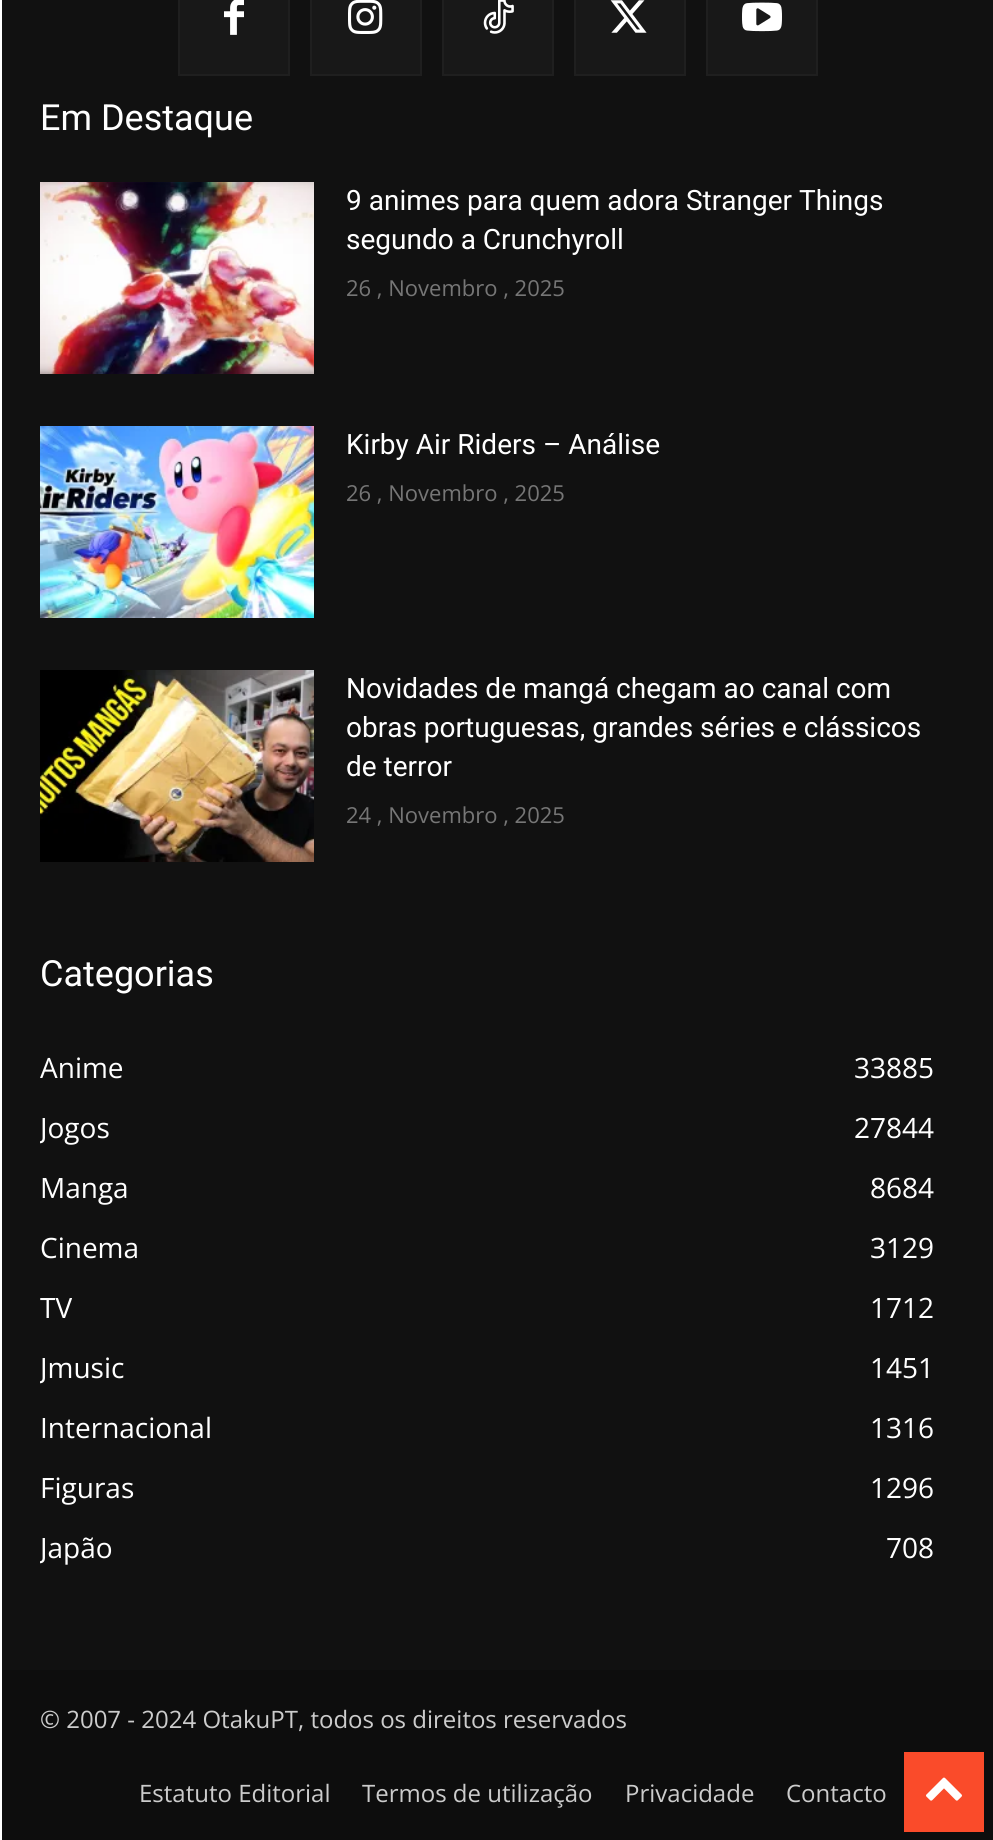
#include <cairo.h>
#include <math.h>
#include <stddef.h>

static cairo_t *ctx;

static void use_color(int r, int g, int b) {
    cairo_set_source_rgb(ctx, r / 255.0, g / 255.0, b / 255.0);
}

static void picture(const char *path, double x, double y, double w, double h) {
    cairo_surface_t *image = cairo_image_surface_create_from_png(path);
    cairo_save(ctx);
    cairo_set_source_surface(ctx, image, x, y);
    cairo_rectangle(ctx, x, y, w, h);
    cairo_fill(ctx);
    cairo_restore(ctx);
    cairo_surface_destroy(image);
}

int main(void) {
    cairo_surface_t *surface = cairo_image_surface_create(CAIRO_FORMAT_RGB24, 993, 1840);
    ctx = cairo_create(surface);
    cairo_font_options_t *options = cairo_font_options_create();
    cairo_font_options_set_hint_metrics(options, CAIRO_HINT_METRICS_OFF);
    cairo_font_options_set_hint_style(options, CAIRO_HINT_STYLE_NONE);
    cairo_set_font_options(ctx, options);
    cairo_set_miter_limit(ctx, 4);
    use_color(255, 255, 255);
    cairo_paint(ctx);
    use_color(17, 17, 17);
    cairo_rectangle(ctx, 2, 0, 991, 1670);
    cairo_fill(ctx);
    use_color(24, 24, 24);
    cairo_rectangle(ctx, 179, -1, 110, 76);
    cairo_fill_preserve(ctx);
    use_color(31, 31, 31);
    cairo_stroke(ctx);
    picture("img1.png", 224, 0, 20, 35);
    use_color(24, 24, 24);
    cairo_rectangle(ctx, 311, -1, 110, 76);
    cairo_fill_preserve(ctx);
    use_color(31, 31, 31);
    cairo_stroke(ctx);
    picture("img2.png", 348, 0, 35, 34);
    use_color(24, 24, 24);
    cairo_rectangle(ctx, 443, -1, 110, 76);
    cairo_fill_preserve(ctx);
    use_color(31, 31, 31);
    cairo_stroke(ctx);
    picture("img3.png", 483, 0, 31, 34);
    use_color(24, 24, 24);
    cairo_rectangle(ctx, 575, -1, 110, 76);
    cairo_fill_preserve(ctx);
    use_color(31, 31, 31);
    cairo_stroke(ctx);
    picture("img4.png", 610, 0, 37, 33);
    use_color(24, 24, 24);
    cairo_rectangle(ctx, 707, -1, 110, 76);
    cairo_fill_preserve(ctx);
    use_color(31, 31, 31);
    cairo_stroke(ctx);
    picture("img5.png", 742, 2, 40, 30);
    cairo_select_font_face(ctx, "Roboto", CAIRO_FONT_SLANT_NORMAL, CAIRO_FONT_WEIGHT_NORMAL);
    cairo_set_font_size(ctx, 36);
    use_color(255, 255, 255);
    cairo_move_to(ctx, 40, 130);
    cairo_show_text(ctx, "Em Destaque");
    picture("img6.png", 40, 182, 274, 192);
    cairo_set_font_size(ctx, 28);
    cairo_move_to(ctx, 346, 210);
    cairo_show_text(ctx, "9 animes para quem adora Stranger Things");
    cairo_move_to(ctx, 346, 249);
    cairo_show_text(ctx, "segundo a Crunchyroll");
    cairo_select_font_face(ctx, "Open Sans", CAIRO_FONT_SLANT_NORMAL, CAIRO_FONT_WEIGHT_NORMAL);
    cairo_set_font_size(ctx, 22);
    use_color(118, 118, 118);
    cairo_move_to(ctx, 346, 296);
    cairo_show_text(ctx, "26 , Novembro , 2025");
    picture("img7.png", 40, 426, 274, 192);
    cairo_select_font_face(ctx, "Roboto", CAIRO_FONT_SLANT_NORMAL, CAIRO_FONT_WEIGHT_NORMAL);
    cairo_set_font_size(ctx, 28);
    use_color(255, 255, 255);
    cairo_move_to(ctx, 346, 454);
    cairo_show_text(ctx, "Kirby Air Riders – Análise");
    cairo_select_font_face(ctx, "Open Sans", CAIRO_FONT_SLANT_NORMAL, CAIRO_FONT_WEIGHT_NORMAL);
    cairo_set_font_size(ctx, 22);
    use_color(118, 118, 118);
    cairo_move_to(ctx, 346, 501);
    cairo_show_text(ctx, "26 , Novembro , 2025");
    picture("img8.png", 40, 670, 274, 192);
    cairo_select_font_face(ctx, "Roboto", CAIRO_FONT_SLANT_NORMAL, CAIRO_FONT_WEIGHT_NORMAL);
    cairo_set_font_size(ctx, 28);
    use_color(255, 255, 255);
    cairo_move_to(ctx, 346, 698);
    cairo_show_text(ctx, "Novidades de mangá chegam ao canal com");
    cairo_move_to(ctx, 346, 737);
    cairo_show_text(ctx, "obras portuguesas, grandes séries e clássicos");
    cairo_move_to(ctx, 346, 776);
    cairo_show_text(ctx, "de terror");
    cairo_select_font_face(ctx, "Open Sans", CAIRO_FONT_SLANT_NORMAL, CAIRO_FONT_WEIGHT_NORMAL);
    cairo_set_font_size(ctx, 22);
    use_color(118, 118, 118);
    cairo_move_to(ctx, 346, 823);
    cairo_show_text(ctx, "24 , Novembro , 2025");
    cairo_select_font_face(ctx, "Roboto", CAIRO_FONT_SLANT_NORMAL, CAIRO_FONT_WEIGHT_NORMAL);
    cairo_set_font_size(ctx, 36);
    use_color(255, 255, 255);
    cairo_move_to(ctx, 40, 986);
    cairo_show_text(ctx, "Categorias");
    cairo_select_font_face(ctx, "Open Sans", CAIRO_FONT_SLANT_NORMAL, CAIRO_FONT_WEIGHT_NORMAL);
    cairo_set_font_size(ctx, 28);
    cairo_move_to(ctx, 40, 1078);
    cairo_show_text(ctx, "Anime");
    cairo_move_to(ctx, 854, 1078);
    cairo_show_text(ctx, "33885");
    cairo_save(ctx);
    cairo_rectangle(ctx, 40, 942, 914, 664);
    cairo_clip(ctx);
    cairo_move_to(ctx, 40, 1138);
    cairo_show_text(ctx, "Jogos");
    cairo_restore(ctx);
    cairo_move_to(ctx, 854, 1138);
    cairo_show_text(ctx, "27844");
    cairo_move_to(ctx, 40, 1198);
    cairo_show_text(ctx, "Manga");
    cairo_move_to(ctx, 870, 1198);
    cairo_show_text(ctx, "8684");
    cairo_move_to(ctx, 40, 1258);
    cairo_show_text(ctx, "Cinema");
    cairo_move_to(ctx, 870, 1258);
    cairo_show_text(ctx, "3129");
    cairo_move_to(ctx, 40, 1318);
    cairo_show_text(ctx, "TV");
    cairo_move_to(ctx, 870, 1318);
    cairo_show_text(ctx, "1712");
    cairo_save(ctx);
    cairo_rectangle(ctx, 40, 942, 914, 664);
    cairo_clip(ctx);
    cairo_move_to(ctx, 40, 1378);
    cairo_show_text(ctx, "Jmusic");
    cairo_restore(ctx);
    cairo_move_to(ctx, 870, 1378);
    cairo_show_text(ctx, "1451");
    cairo_move_to(ctx, 40, 1438);
    cairo_show_text(ctx, "Internacional");
    cairo_move_to(ctx, 870, 1438);
    cairo_show_text(ctx, "1316");
    cairo_move_to(ctx, 40, 1498);
    cairo_show_text(ctx, "Figuras");
    cairo_move_to(ctx, 870, 1498);
    cairo_show_text(ctx, "1296");
    cairo_save(ctx);
    cairo_rectangle(ctx, 40, 942, 914, 664);
    cairo_clip(ctx);
    cairo_move_to(ctx, 40, 1558);
    cairo_show_text(ctx, "Japão");
    cairo_restore(ctx);
    cairo_move_to(ctx, 886, 1558);
    cairo_show_text(ctx, "708");
    use_color(13, 13, 13);
    cairo_rectangle(ctx, 2, 1670, 991, 170);
    cairo_fill(ctx);
    cairo_set_font_size(ctx, 24);
    use_color(204, 204, 204);
    cairo_move_to(ctx, 40, 1728);
    cairo_show_text(ctx, "© 2007 - 2024 OtakuPT, todos os direitos reservados");
    cairo_move_to(ctx, 139, 1802);
    cairo_show_text(ctx, "Estatuto Editorial");
    cairo_move_to(ctx, 362, 1802);
    cairo_show_text(ctx, "Termos de utilização");
    cairo_move_to(ctx, 625, 1802);
    cairo_show_text(ctx, "Privacidade");
    cairo_move_to(ctx, 786, 1802);
    cairo_show_text(ctx, "Contacto");
    use_color(250, 75, 42);
    cairo_rectangle(ctx, 904, 1752, 80, 80);
    cairo_fill(ctx);
    picture("img9.png", 926, 1777, 36, 24);
    cairo_surface_write_to_png(surface, "result.png");
    cairo_font_options_destroy(options);
    cairo_destroy(ctx);
    cairo_surface_destroy(surface);
    return 0;
}
